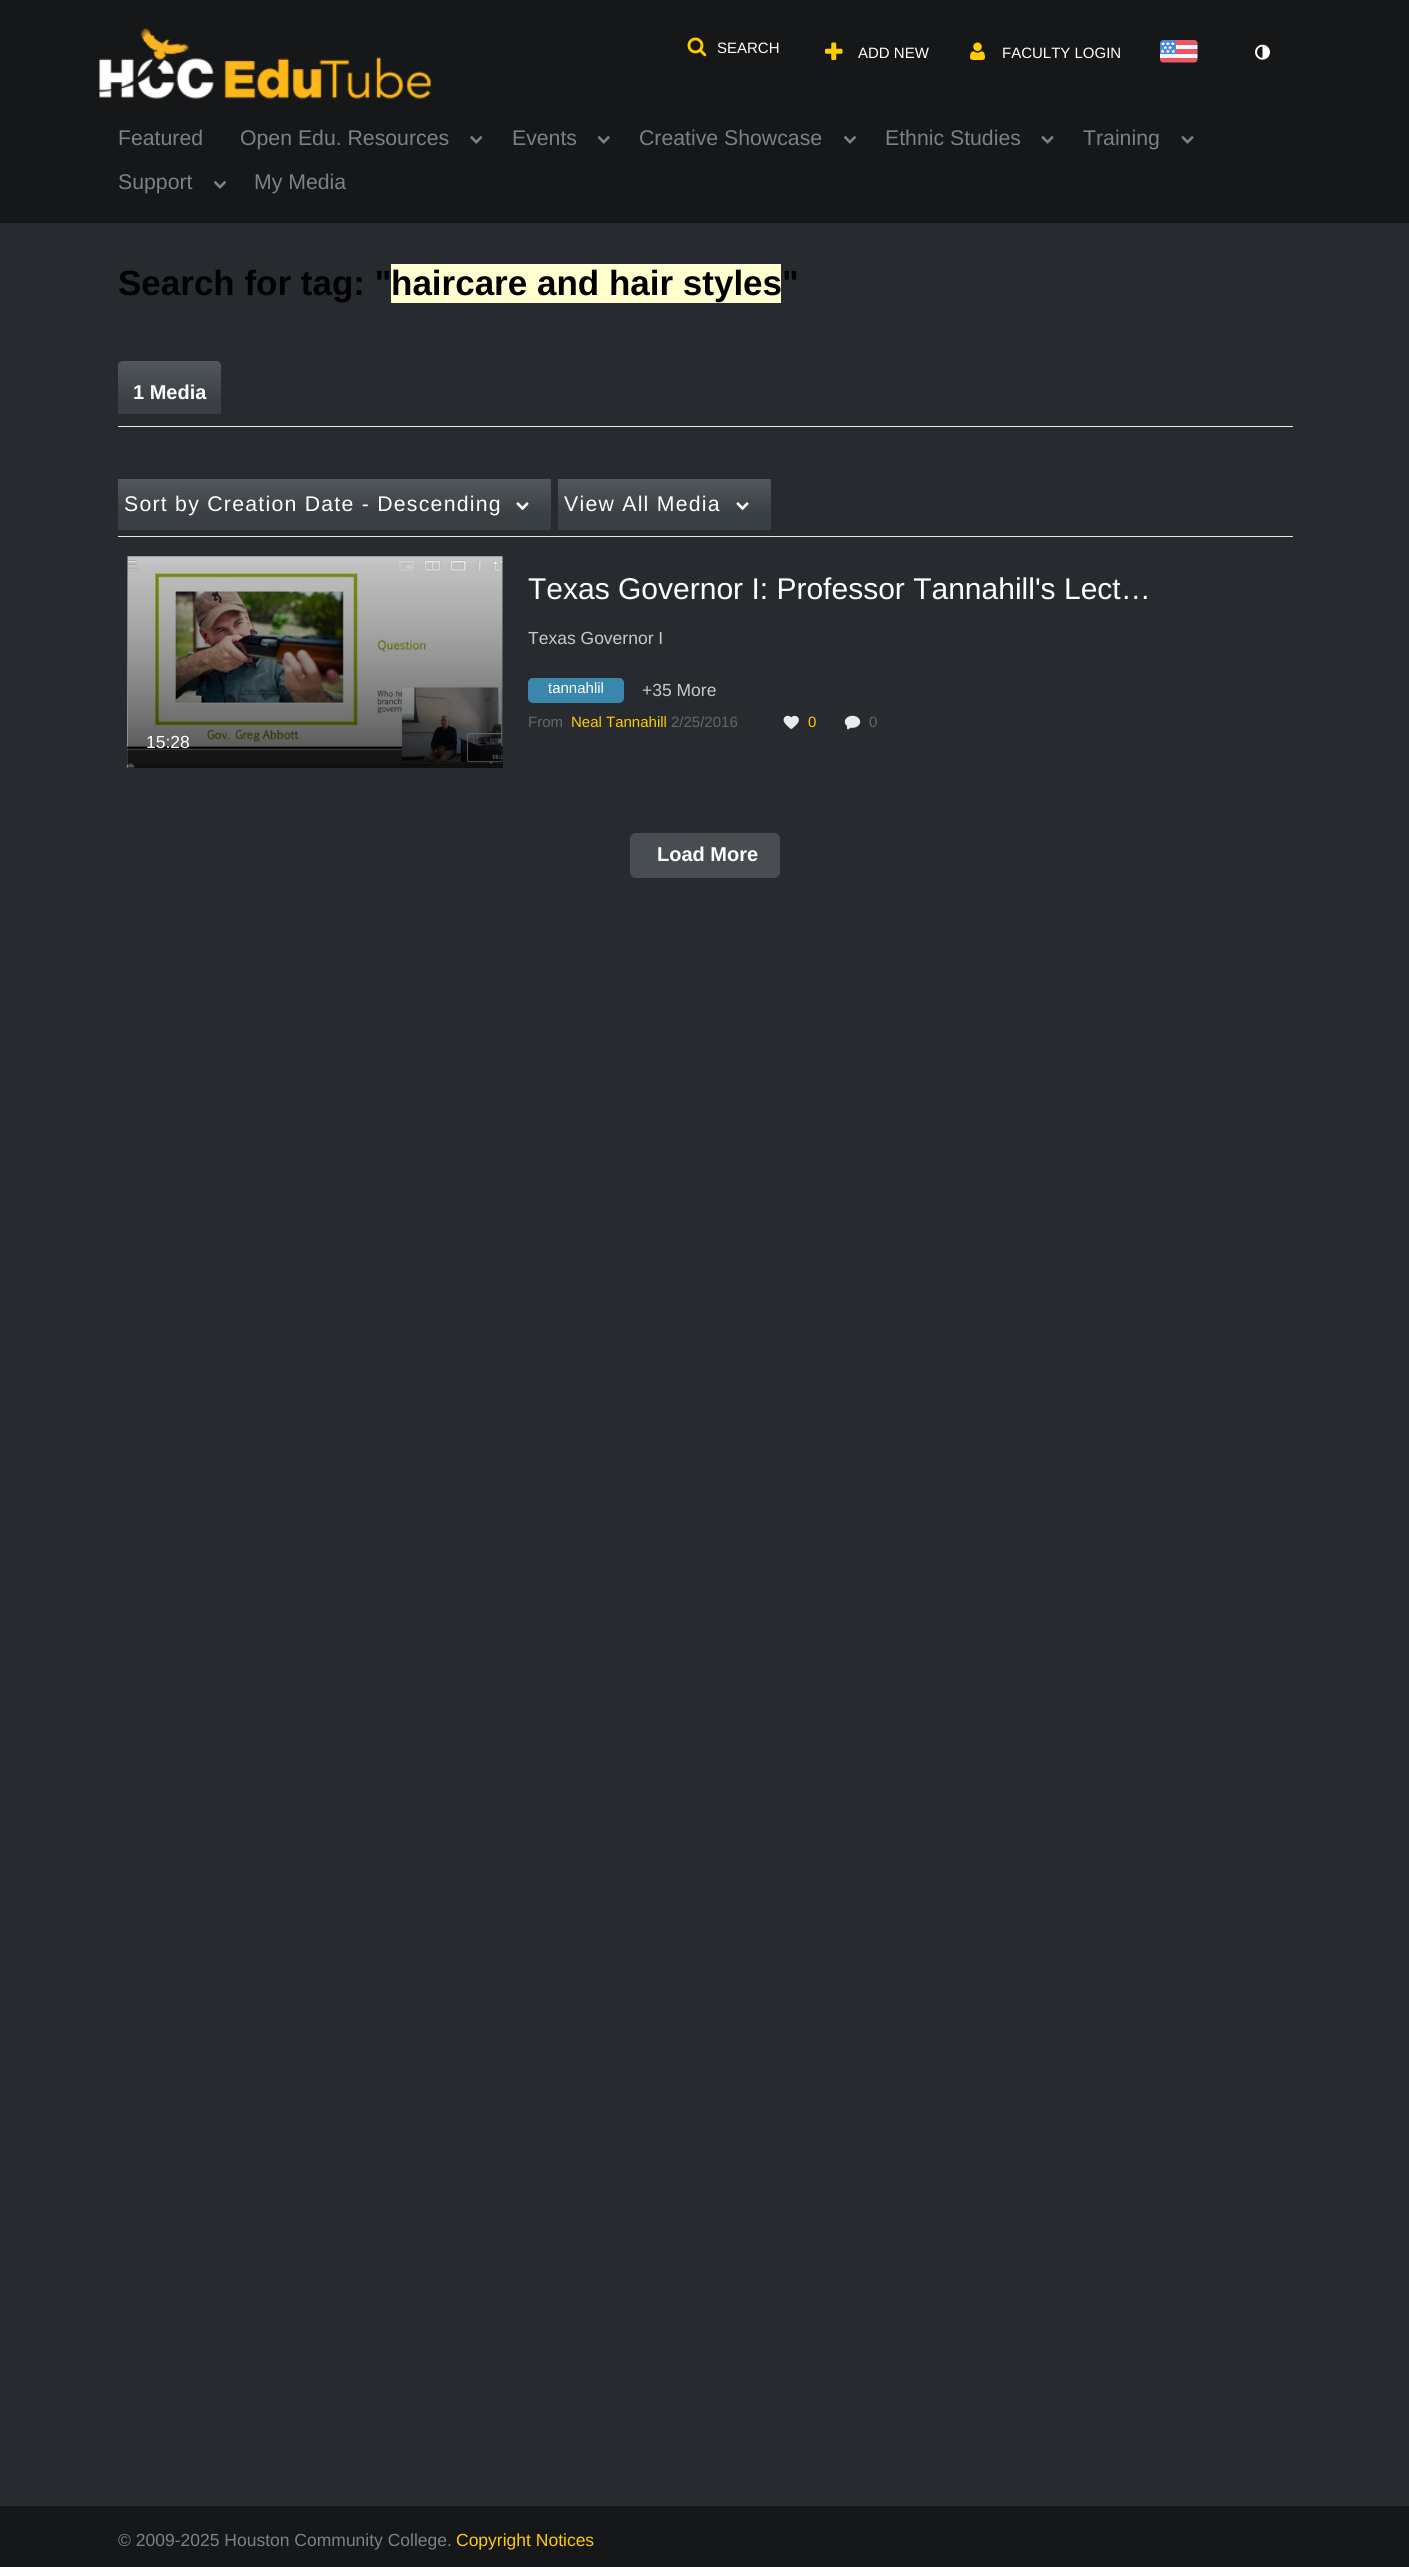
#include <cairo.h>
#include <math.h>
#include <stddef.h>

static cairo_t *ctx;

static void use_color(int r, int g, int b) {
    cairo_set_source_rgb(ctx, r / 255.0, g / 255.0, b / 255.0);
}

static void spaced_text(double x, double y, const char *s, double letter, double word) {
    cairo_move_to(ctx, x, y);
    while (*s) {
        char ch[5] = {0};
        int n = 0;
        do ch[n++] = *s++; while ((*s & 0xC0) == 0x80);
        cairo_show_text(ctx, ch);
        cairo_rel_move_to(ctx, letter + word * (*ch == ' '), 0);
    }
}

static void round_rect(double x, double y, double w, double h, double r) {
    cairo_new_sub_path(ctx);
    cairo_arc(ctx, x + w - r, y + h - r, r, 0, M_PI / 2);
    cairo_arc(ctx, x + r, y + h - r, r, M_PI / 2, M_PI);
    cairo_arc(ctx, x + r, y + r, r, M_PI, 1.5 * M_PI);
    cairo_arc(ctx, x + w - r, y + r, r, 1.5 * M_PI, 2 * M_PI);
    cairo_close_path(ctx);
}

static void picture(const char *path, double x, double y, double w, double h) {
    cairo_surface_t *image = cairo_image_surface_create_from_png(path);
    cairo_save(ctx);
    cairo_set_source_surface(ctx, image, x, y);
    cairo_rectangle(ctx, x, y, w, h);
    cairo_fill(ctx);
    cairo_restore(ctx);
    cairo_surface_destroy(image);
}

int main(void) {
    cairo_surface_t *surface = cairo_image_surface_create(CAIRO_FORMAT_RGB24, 1409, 2567);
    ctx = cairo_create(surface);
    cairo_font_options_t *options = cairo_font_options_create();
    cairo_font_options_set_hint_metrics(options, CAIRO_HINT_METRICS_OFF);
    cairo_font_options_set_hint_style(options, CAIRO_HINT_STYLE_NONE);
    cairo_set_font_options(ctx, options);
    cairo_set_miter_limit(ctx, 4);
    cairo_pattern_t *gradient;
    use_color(39, 43, 48);
    cairo_paint(ctx);
    use_color(21, 23, 25);
    cairo_rectangle(ctx, 0, 0, 1409, 223);
    cairo_fill(ctx);
    picture("img1.png", 99, 28, 332, 71);
    picture("img2.png", 687, 37, 20, 20);
    cairo_select_font_face(ctx, "Liberation Sans", CAIRO_FONT_SLANT_NORMAL, CAIRO_FONT_WEIGHT_NORMAL);
    cairo_set_font_size(ctx, 15);
    use_color(255, 255, 255);
    cairo_move_to(ctx, 717, 53);
    cairo_show_text(ctx, "SEARCH");
    picture("img3.png", 825, 42, 18, 18);
    cairo_move_to(ctx, 858, 58);
    cairo_show_text(ctx, "ADD NEW");
    picture("img4.png", 970, 42, 15, 18);
    cairo_move_to(ctx, 1002, 58);
    cairo_show_text(ctx, "FACULTY LOGIN");
    picture("img5.png", 1160, 40, 38, 23);
    picture("img6.png", 1255, 44, 15, 16);
    cairo_set_font_size(ctx, 21.25);
    use_color(122, 130, 136);
    cairo_move_to(ctx, 118, 145);
    cairo_show_text(ctx, "Featured");
    cairo_move_to(ctx, 240, 145);
    cairo_show_text(ctx, "Open Edu. Resources");
    picture("img7.png", 470, 136, 13, 8);
    cairo_move_to(ctx, 512, 145);
    cairo_show_text(ctx, "Events");
    picture("img8.png", 597, 136, 13, 8);
    cairo_move_to(ctx, 639, 145);
    cairo_show_text(ctx, "Creative Showcase");
    picture("img9.png", 844, 136, 12, 8);
    cairo_move_to(ctx, 885, 145);
    cairo_show_text(ctx, "Ethnic Studies");
    picture("img10.png", 1041, 136, 13, 8);
    cairo_move_to(ctx, 1083, 145);
    cairo_show_text(ctx, "Training");
    picture("img10.png", 1181, 136, 13, 8);
    cairo_move_to(ctx, 118, 189);
    cairo_show_text(ctx, "Support");
    picture("img9.png", 214, 181, 12, 8);
    cairo_move_to(ctx, 254, 189);
    cairo_show_text(ctx, "My Media");
    cairo_select_font_face(ctx, "Liberation Sans", CAIRO_FONT_SLANT_NORMAL, CAIRO_FONT_WEIGHT_BOLD);
    cairo_set_font_size(ctx, 35);
    use_color(0, 0, 0);
    cairo_move_to(ctx, 118, 295);
    cairo_show_text(ctx, "Search for tag: \"");
    use_color(255, 255, 207);
    cairo_rectangle(ctx, 391, 264, 390, 39);
    cairo_fill(ctx);
    use_color(0, 0, 0);
    cairo_move_to(ctx, 391, 295);
    cairo_show_text(ctx, "haircare and hair styles\"");
    use_color(235, 235, 235);
    cairo_rectangle(ctx, 118, 426, 1175, 1);
    cairo_fill(ctx);
    gradient = cairo_pattern_create_linear(169, 361, 169, 421);
    cairo_pattern_add_color_stop_rgba(gradient, 0, 0.322, 0.341, 0.361, 1);
    cairo_pattern_add_color_stop_rgba(gradient, 0.7, 0.227, 0.247, 0.267, 1);
    cairo_pattern_add_color_stop_rgba(gradient, 1, 0.227, 0.247, 0.267, 1);
    cairo_set_source(ctx, gradient);
    cairo_pattern_destroy(gradient);
    cairo_new_path(ctx);
    cairo_move_to(ctx, 123, 361);
    cairo_line_to(ctx, 216, 361);
    cairo_curve_to(ctx, 219, 361, 221, 363, 221, 366);
    cairo_line_to(ctx, 221, 414);
    cairo_line_to(ctx, 118, 414);
    cairo_line_to(ctx, 118, 366);
    cairo_curve_to(ctx, 118, 363, 120, 361, 123, 361);
    cairo_close_path(ctx);
    cairo_fill(ctx);
    cairo_set_font_size(ctx, 20);
    use_color(255, 255, 255);
    cairo_move_to(ctx, 133, 399);
    cairo_show_text(ctx, "1 Media");
    gradient = cairo_pattern_create_linear(334, 479, 334, 530);
    cairo_pattern_add_color_stop_rgba(gradient, 0, 0.322, 0.341, 0.361, 1);
    cairo_pattern_add_color_stop_rgba(gradient, 0.7, 0.227, 0.247, 0.267, 1);
    cairo_pattern_add_color_stop_rgba(gradient, 1, 0.227, 0.247, 0.267, 1);
    cairo_set_source(ctx, gradient);
    cairo_pattern_destroy(gradient);
    cairo_rectangle(ctx, 118, 479, 433, 51);
    cairo_fill(ctx);
    cairo_select_font_face(ctx, "Liberation Sans", CAIRO_FONT_SLANT_NORMAL, CAIRO_FONT_WEIGHT_NORMAL);
    cairo_set_font_size(ctx, 21.25);
    use_color(255, 255, 255);
    spaced_text(124, 511, "Sort by Creation Date - Descending", 1.25, 0);
    picture("img11.png", 516, 502, 13, 8);
    gradient = cairo_pattern_create_linear(664, 479, 664, 530);
    cairo_pattern_add_color_stop_rgba(gradient, 0, 0.322, 0.341, 0.361, 1);
    cairo_pattern_add_color_stop_rgba(gradient, 0.7, 0.227, 0.247, 0.267, 1);
    cairo_pattern_add_color_stop_rgba(gradient, 1, 0.227, 0.247, 0.267, 1);
    cairo_set_source(ctx, gradient);
    cairo_pattern_destroy(gradient);
    cairo_rectangle(ctx, 558, 479, 213, 51);
    cairo_fill(ctx);
    use_color(255, 255, 255);
    spaced_text(564, 511, "View All Media", 1.25, 0);
    picture("img11.png", 736, 502, 13, 8);
    use_color(235, 235, 235);
    cairo_rectangle(ctx, 118, 536, 1175, 1);
    cairo_fill(ctx);
    cairo_set_font_size(ctx, 30);
    use_color(255, 255, 255);
    cairo_move_to(ctx, 528, 599);
    cairo_show_text(ctx, "Texas Governor I: Professor Tannahill's Lect…");
    cairo_set_font_size(ctx, 17.5);
    use_color(200, 200, 200);
    cairo_move_to(ctx, 528, 644);
    cairo_show_text(ctx, "Texas Governor I");
    use_color(58, 135, 173);
    round_rect(528.5, 678.5, 95, 24, 4.5);
    cairo_fill_preserve(ctx);
    cairo_set_line_width(ctx, 1);
    cairo_stroke(ctx);
    cairo_set_font_size(ctx, 15);
    use_color(255, 255, 255);
    cairo_move_to(ctx, 548, 693);
    cairo_show_text(ctx, "tannahlil");
    cairo_set_font_size(ctx, 17.5);
    use_color(200, 200, 200);
    cairo_move_to(ctx, 642, 696);
    cairo_show_text(ctx, "+35 More");
    cairo_set_font_size(ctx, 15);
    use_color(102, 102, 102);
    cairo_move_to(ctx, 528, 727);
    cairo_show_text(ctx, "From");
    use_color(255, 204, 0);
    cairo_move_to(ctx, 571, 727);
    cairo_show_text(ctx, "Neal Tannahill");
    use_color(102, 102, 102);
    cairo_move_to(ctx, 671, 727);
    cairo_show_text(ctx, "2/25/2016");
    picture("img12.png", 783, 715, 16, 14);
    use_color(255, 204, 0);
    cairo_move_to(ctx, 808, 727);
    cairo_show_text(ctx, "0");
    picture("img13.png", 844, 715, 17, 15);
    use_color(102, 102, 102);
    cairo_move_to(ctx, 869, 727);
    cairo_show_text(ctx, "0");
    picture("img14.png", 127, 556, 376, 212);
    gradient = cairo_pattern_create_linear(315, 556, 315, 768);
    cairo_pattern_add_color_stop_rgba(gradient, 0, 0, 0, 0, 0);
    cairo_pattern_add_color_stop_rgba(gradient, 1, 0, 0, 0, 0.7);
    cairo_set_source(ctx, gradient);
    cairo_pattern_destroy(gradient);
    cairo_rectangle(ctx, 128, 563, 375, 205);
    cairo_fill(ctx);
    cairo_set_font_size(ctx, 17.5);
    use_color(255, 255, 255);
    cairo_move_to(ctx, 146, 748);
    cairo_show_text(ctx, "15:28");
    use_color(72, 77, 81);
    round_rect(630.5, 833.5, 149, 44, 5.5);
    cairo_fill_preserve(ctx);
    cairo_stroke(ctx);
    cairo_select_font_face(ctx, "Liberation Sans", CAIRO_FONT_SLANT_NORMAL, CAIRO_FONT_WEIGHT_BOLD);
    cairo_set_font_size(ctx, 20);
    use_color(255, 255, 255);
    cairo_move_to(ctx, 657, 861);
    cairo_show_text(ctx, "Load More");
    use_color(21, 23, 25);
    cairo_rectangle(ctx, 0, 2506, 1409, 61);
    cairo_fill(ctx);
    cairo_select_font_face(ctx, "Liberation Sans", CAIRO_FONT_SLANT_NORMAL, CAIRO_FONT_WEIGHT_NORMAL);
    cairo_set_font_size(ctx, 17.5);
    use_color(122, 130, 136);
    cairo_move_to(ctx, 118, 2546);
    cairo_show_text(ctx, "© 2009-2025 Houston Community College.");
    use_color(255, 204, 0);
    cairo_move_to(ctx, 456, 2546);
    cairo_show_text(ctx, "Copyright Notices");
    cairo_surface_write_to_png(surface, "result.png");
    cairo_font_options_destroy(options);
    cairo_destroy(ctx);
    cairo_surface_destroy(surface);
    return 0;
}
